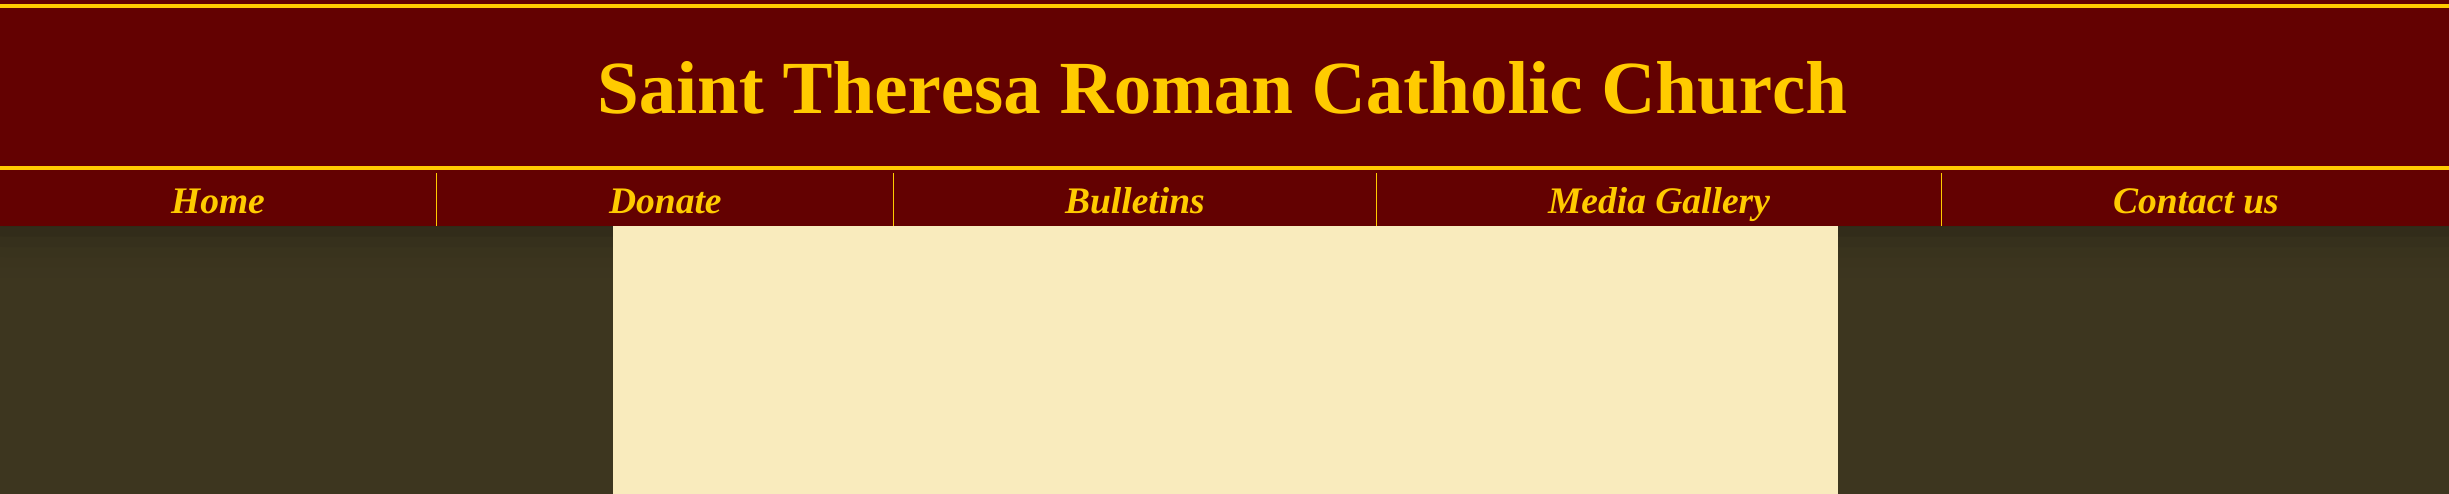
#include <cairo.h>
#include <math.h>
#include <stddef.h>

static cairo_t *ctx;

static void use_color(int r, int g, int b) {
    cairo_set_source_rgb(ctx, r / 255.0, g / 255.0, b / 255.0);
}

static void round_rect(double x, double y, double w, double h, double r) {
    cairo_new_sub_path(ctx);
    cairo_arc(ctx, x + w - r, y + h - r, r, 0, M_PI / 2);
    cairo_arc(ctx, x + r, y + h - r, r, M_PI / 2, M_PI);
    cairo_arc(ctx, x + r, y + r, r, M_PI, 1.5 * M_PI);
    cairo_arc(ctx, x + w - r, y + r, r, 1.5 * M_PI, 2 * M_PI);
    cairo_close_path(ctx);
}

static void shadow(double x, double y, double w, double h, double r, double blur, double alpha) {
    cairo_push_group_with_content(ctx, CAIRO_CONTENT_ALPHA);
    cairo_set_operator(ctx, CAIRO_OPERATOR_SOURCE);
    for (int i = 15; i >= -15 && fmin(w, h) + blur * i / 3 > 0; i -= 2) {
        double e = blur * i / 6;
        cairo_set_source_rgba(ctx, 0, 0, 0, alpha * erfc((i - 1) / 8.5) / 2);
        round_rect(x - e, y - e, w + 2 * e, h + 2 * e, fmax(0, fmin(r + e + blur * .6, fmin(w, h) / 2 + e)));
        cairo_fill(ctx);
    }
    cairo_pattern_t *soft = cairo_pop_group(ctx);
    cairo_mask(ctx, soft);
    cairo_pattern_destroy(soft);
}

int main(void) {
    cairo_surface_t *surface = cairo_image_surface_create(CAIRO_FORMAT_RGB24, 2449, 494);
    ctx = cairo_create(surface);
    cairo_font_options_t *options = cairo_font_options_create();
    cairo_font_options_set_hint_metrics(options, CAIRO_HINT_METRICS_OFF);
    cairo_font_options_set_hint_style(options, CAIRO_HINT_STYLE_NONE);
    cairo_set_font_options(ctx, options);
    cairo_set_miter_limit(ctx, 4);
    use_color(61, 54, 31);
    cairo_paint(ctx);
    use_color(0, 0, 0);
    shadow(-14, 10, 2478, 201, 0, 31, 0.7);
    use_color(99, 1, 1);
    cairo_rectangle(ctx, 0, 0, 2449, 226);
    cairo_fill(ctx);
    use_color(255, 203, 0);
    cairo_rectangle(ctx, 0, 4, 2449, 4);
    cairo_fill(ctx);
    cairo_rectangle(ctx, 0, 166, 2449, 4);
    cairo_fill(ctx);
    cairo_select_font_face(ctx, "Liberation Serif", CAIRO_FONT_SLANT_NORMAL, CAIRO_FONT_WEIGHT_BOLD);
    cairo_set_font_size(ctx, 75);
    cairo_move_to(ctx, 597, 113);
    cairo_show_text(ctx, "Saint Theresa Roman Catholic Church");
    cairo_select_font_face(ctx, "Liberation Serif", CAIRO_FONT_SLANT_ITALIC, CAIRO_FONT_WEIGHT_BOLD);
    cairo_set_font_size(ctx, 37.5);
    cairo_move_to(ctx, 171, 213);
    cairo_show_text(ctx, "Home");
    cairo_rectangle(ctx, 436, 173, 1, 53);
    cairo_fill(ctx);
    cairo_move_to(ctx, 609, 213);
    cairo_show_text(ctx, "Donate");
    cairo_rectangle(ctx, 893, 173, 1, 53);
    cairo_fill(ctx);
    cairo_move_to(ctx, 1065, 213);
    cairo_show_text(ctx, "Bulletins");
    cairo_rectangle(ctx, 1376, 173, 1, 53);
    cairo_fill(ctx);
    cairo_move_to(ctx, 1548, 213);
    cairo_show_text(ctx, "Media Gallery");
    cairo_rectangle(ctx, 1941, 173, 1, 53);
    cairo_fill(ctx);
    cairo_move_to(ctx, 2113, 213);
    cairo_show_text(ctx, "Contact us");
    use_color(249, 235, 189);
    cairo_rectangle(ctx, 613, 226, 1225, 268);
    cairo_fill(ctx);
    cairo_surface_write_to_png(surface, "result.png");
    cairo_font_options_destroy(options);
    cairo_destroy(ctx);
    cairo_surface_destroy(surface);
    return 0;
}
